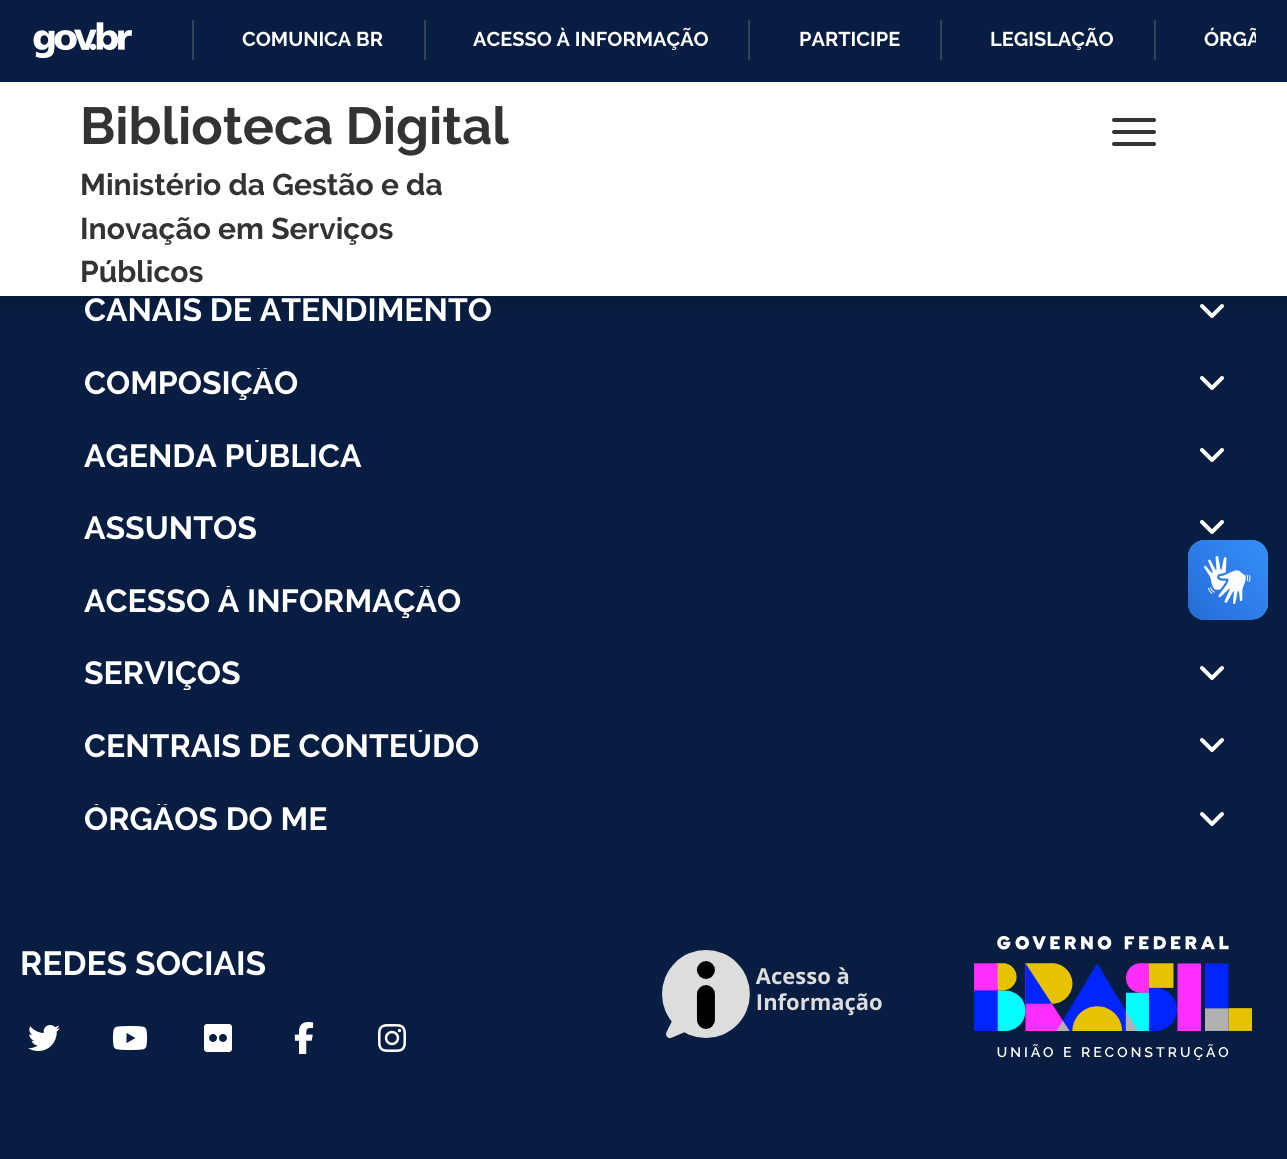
#include <cairo.h>
#include <math.h>
#include <stddef.h>

static cairo_t *ctx;

static void use_color(int r, int g, int b) {
    cairo_set_source_rgb(ctx, r / 255.0, g / 255.0, b / 255.0);
}

static void round_rect(double x, double y, double w, double h, double r) {
    cairo_new_sub_path(ctx);
    cairo_arc(ctx, x + w - r, y + h - r, r, 0, M_PI / 2);
    cairo_arc(ctx, x + r, y + h - r, r, M_PI / 2, M_PI);
    cairo_arc(ctx, x + r, y + r, r, M_PI, 1.5 * M_PI);
    cairo_arc(ctx, x + w - r, y + r, r, 1.5 * M_PI, 2 * M_PI);
    cairo_close_path(ctx);
}

static void shadow(double x, double y, double w, double h, double r, double blur, double alpha) {
    cairo_push_group_with_content(ctx, CAIRO_CONTENT_ALPHA);
    cairo_set_operator(ctx, CAIRO_OPERATOR_SOURCE);
    for (int i = 15; i >= -15 && fmin(w, h) + blur * i / 3 > 0; i -= 2) {
        double e = blur * i / 6;
        cairo_set_source_rgba(ctx, 0, 0, 0, alpha * erfc((i - 1) / 8.5) / 2);
        round_rect(x - e, y - e, w + 2 * e, h + 2 * e, fmax(0, fmin(r + e + blur * .6, fmin(w, h) / 2 + e)));
        cairo_fill(ctx);
    }
    cairo_pattern_t *soft = cairo_pop_group(ctx);
    cairo_mask(ctx, soft);
    cairo_pattern_destroy(soft);
}

static void picture(const char *path, double x, double y, double w, double h) {
    cairo_surface_t *image = cairo_image_surface_create_from_png(path);
    cairo_save(ctx);
    cairo_set_source_surface(ctx, image, x, y);
    cairo_rectangle(ctx, x, y, w, h);
    cairo_fill(ctx);
    cairo_restore(ctx);
    cairo_surface_destroy(image);
}

int main(void) {
    cairo_surface_t *surface = cairo_image_surface_create(CAIRO_FORMAT_RGB24, 1287, 1159);
    ctx = cairo_create(surface);
    cairo_font_options_t *options = cairo_font_options_create();
    cairo_font_options_set_hint_metrics(options, CAIRO_HINT_METRICS_OFF);
    cairo_font_options_set_hint_style(options, CAIRO_HINT_STYLE_NONE);
    cairo_set_font_options(ctx, options);
    cairo_set_miter_limit(ctx, 4);
    use_color(7, 29, 65);
    cairo_paint(ctx);
    picture("img2.png", 1200, 304, 24, 14);
    use_color(0, 0, 0);
    shadow(0, 6, 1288, 296, 0, 6, 0.16);
    use_color(255, 255, 255);
    cairo_rectangle(ctx, 0, 82, 1287, 214);
    cairo_fill(ctx);
    use_color(7, 29, 65);
    cairo_rectangle(ctx, 0, 2, 1287, 80);
    cairo_fill(ctx);
    picture("img1.png", 33, 22, 99, 36);
    use_color(50, 66, 91);
    cairo_rectangle(ctx, 192, 20, 2, 40);
    cairo_fill(ctx);
    cairo_select_font_face(ctx, "Raleway", CAIRO_FONT_SLANT_NORMAL, CAIRO_FONT_WEIGHT_BOLD);
    cairo_set_font_size(ctx, 20);
    use_color(255, 255, 255);
    cairo_move_to(ctx, 242, 46);
    cairo_show_text(ctx, "COMUNICA BR");
    use_color(50, 66, 91);
    cairo_rectangle(ctx, 424, 20, 2, 40);
    cairo_fill(ctx);
    use_color(255, 255, 255);
    cairo_move_to(ctx, 473, 46);
    cairo_show_text(ctx, "ACESSO À INFORMAÇÃO");
    use_color(50, 66, 91);
    cairo_rectangle(ctx, 748, 20, 2, 40);
    cairo_fill(ctx);
    use_color(255, 255, 255);
    cairo_move_to(ctx, 799, 46);
    cairo_show_text(ctx, "PARTICIPE");
    use_color(50, 66, 91);
    cairo_rectangle(ctx, 940, 20, 2, 40);
    cairo_fill(ctx);
    use_color(255, 255, 255);
    cairo_move_to(ctx, 990, 46);
    cairo_show_text(ctx, "LEGISLAÇÃO");
    use_color(50, 66, 91);
    cairo_rectangle(ctx, 1154, 20, 2, 40);
    cairo_fill(ctx);
    cairo_save(ctx);
    cairo_rectangle(ctx, 152, 20, 1104, 40);
    cairo_clip(ctx);
    use_color(255, 255, 255);
    cairo_move_to(ctx, 1204, 46);
    cairo_show_text(ctx, "ÓRGÃ");
    cairo_restore(ctx);
    cairo_set_font_size(ctx, 52);
    use_color(51, 51, 51);
    cairo_move_to(ctx, 80, 144);
    cairo_show_text(ctx, "Biblioteca Digital");
    cairo_set_font_size(ctx, 30);
    cairo_move_to(ctx, 80, 195);
    cairo_show_text(ctx, "Ministério da Gestão e da");
    cairo_move_to(ctx, 80, 239);
    cairo_show_text(ctx, "Inovação em Serviços");
    cairo_move_to(ctx, 80, 282);
    cairo_show_text(ctx, "Públicos");
    round_rect(1112, 118, 44, 4, 2);
    cairo_fill(ctx);
    round_rect(1112, 130, 44, 4, 2);
    cairo_fill(ctx);
    round_rect(1112, 142, 44, 4, 2);
    cairo_fill(ctx);
    cairo_set_font_size(ctx, 32);
    use_color(255, 255, 255);
    cairo_move_to(ctx, 84, 321);
    cairo_show_text(ctx, "CANAIS DE ATENDIMENTO");
    cairo_save(ctx);
    cairo_rectangle(ctx, 52, 368, 1136, 32);
    cairo_clip(ctx);
    cairo_move_to(ctx, 84, 394);
    cairo_show_text(ctx, "COMPOSIÇÃO");
    cairo_restore(ctx);
    picture("img2.png", 1200, 376, 24, 14);
    cairo_save(ctx);
    cairo_rectangle(ctx, 52, 440, 1136, 32);
    cairo_clip(ctx);
    cairo_move_to(ctx, 84, 467);
    cairo_show_text(ctx, "AGENDA PÚBLICA");
    cairo_restore(ctx);
    picture("img2.png", 1200, 448, 24, 14);
    cairo_move_to(ctx, 84, 539);
    cairo_show_text(ctx, "ASSUNTOS");
    picture("img2.png", 1200, 520, 24, 14);
    cairo_save(ctx);
    cairo_rectangle(ctx, 52, 586, 1136, 32);
    cairo_clip(ctx);
    cairo_move_to(ctx, 84, 612);
    cairo_show_text(ctx, "ACESSO À INFORMAÇÃO");
    cairo_restore(ctx);
    cairo_save(ctx);
    cairo_rectangle(ctx, 52, 658, 1136, 32);
    cairo_clip(ctx);
    cairo_move_to(ctx, 84, 684);
    cairo_show_text(ctx, "SERVIÇOS");
    cairo_restore(ctx);
    picture("img2.png", 1200, 666, 24, 14);
    cairo_save(ctx);
    cairo_rectangle(ctx, 52, 730, 1136, 32);
    cairo_clip(ctx);
    cairo_move_to(ctx, 84, 757);
    cairo_show_text(ctx, "CENTRAIS DE CONTEÚDO");
    cairo_restore(ctx);
    picture("img2.png", 1200, 738, 24, 14);
    cairo_save(ctx);
    cairo_rectangle(ctx, 52, 804, 1136, 32);
    cairo_clip(ctx);
    cairo_move_to(ctx, 84, 830);
    cairo_show_text(ctx, "ÓRGÃOS DO ME");
    cairo_restore(ctx);
    picture("img2.png", 1200, 812, 24, 14);
    cairo_set_font_size(ctx, 33.5);
    cairo_move_to(ctx, 20, 975);
    cairo_show_text(ctx, "REDES SOCIAIS");
    picture("img3.png", 28, 1025, 32, 26);
    picture("img4.png", 112, 1026, 36, 24);
    picture("img5.png", 204, 1024, 28, 28);
    picture("img6.png", 294, 1022, 20, 32);
    picture("img7.png", 378, 1024, 28, 28);
    picture("img8.png", 662, 950, 220, 89);
    picture("img9.png", 974, 936, 278, 124);
    picture("img10.png", 1188, 540, 80, 80);
    picture("img11.png", 1188, 540, 80, 80);
    cairo_surface_write_to_png(surface, "result.png");
    cairo_font_options_destroy(options);
    cairo_destroy(ctx);
    cairo_surface_destroy(surface);
    return 0;
}
